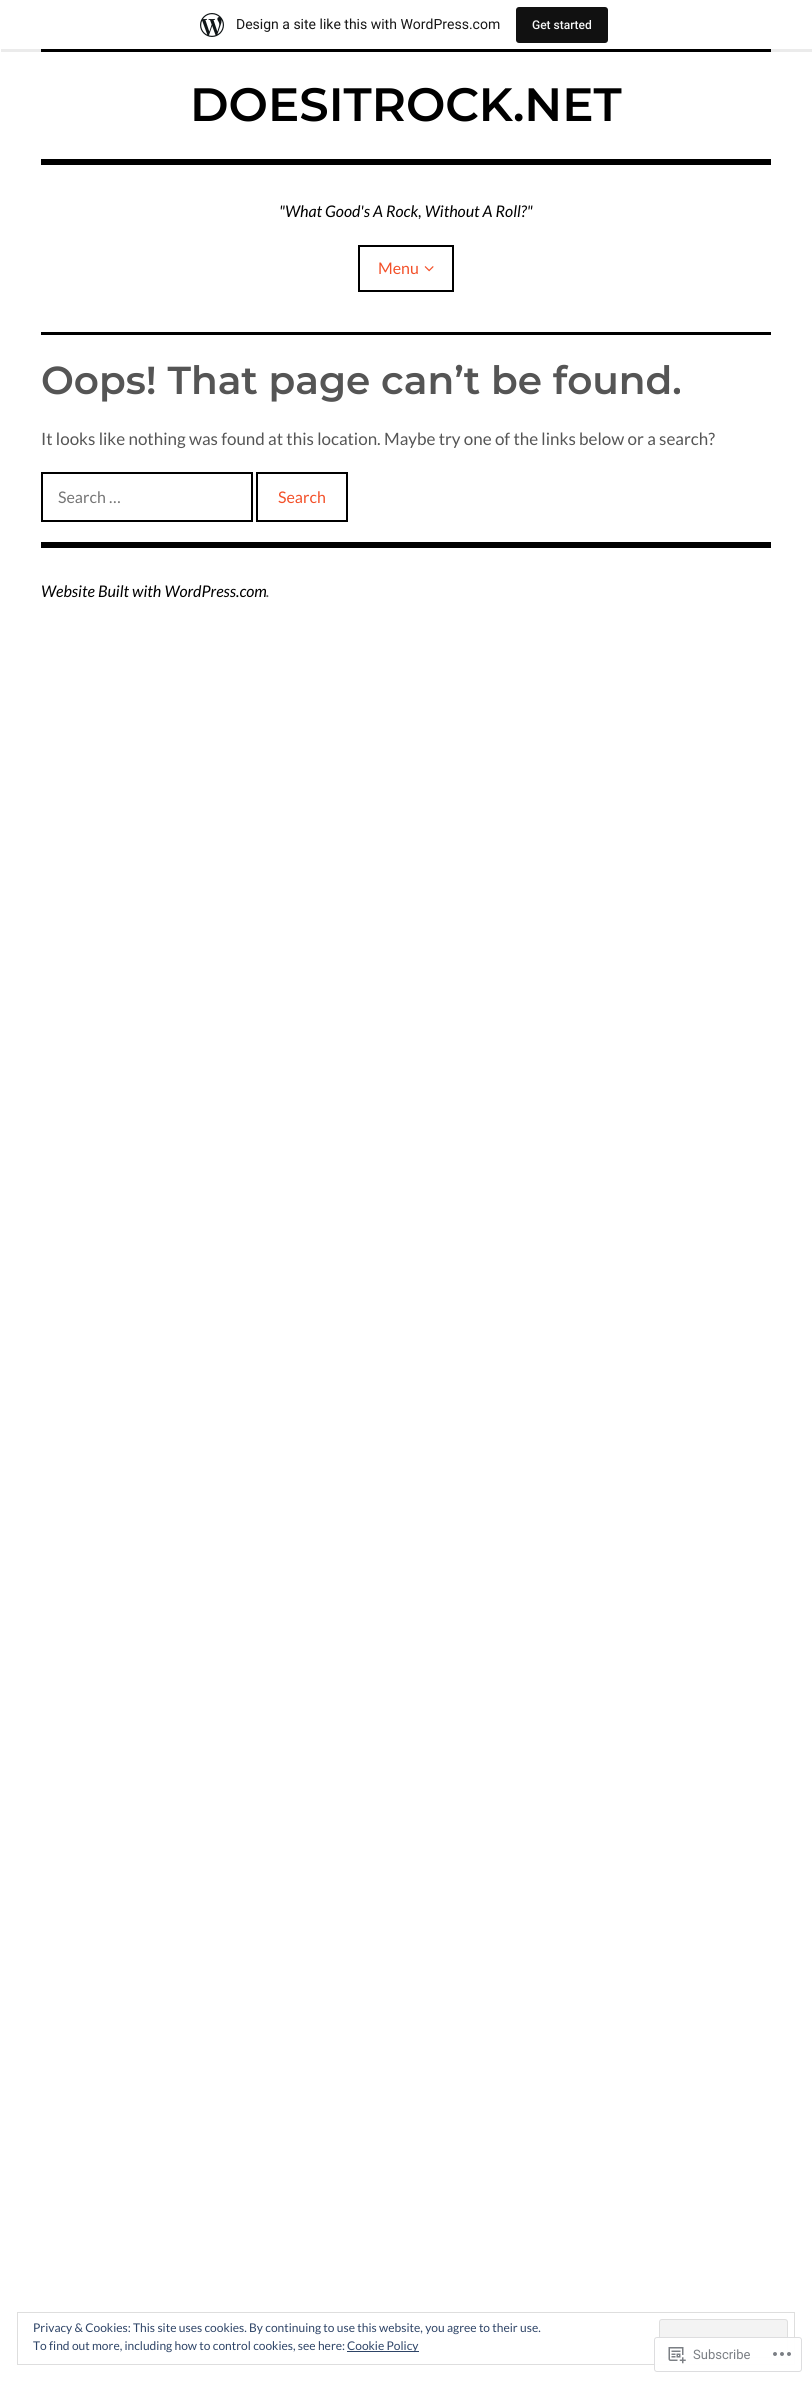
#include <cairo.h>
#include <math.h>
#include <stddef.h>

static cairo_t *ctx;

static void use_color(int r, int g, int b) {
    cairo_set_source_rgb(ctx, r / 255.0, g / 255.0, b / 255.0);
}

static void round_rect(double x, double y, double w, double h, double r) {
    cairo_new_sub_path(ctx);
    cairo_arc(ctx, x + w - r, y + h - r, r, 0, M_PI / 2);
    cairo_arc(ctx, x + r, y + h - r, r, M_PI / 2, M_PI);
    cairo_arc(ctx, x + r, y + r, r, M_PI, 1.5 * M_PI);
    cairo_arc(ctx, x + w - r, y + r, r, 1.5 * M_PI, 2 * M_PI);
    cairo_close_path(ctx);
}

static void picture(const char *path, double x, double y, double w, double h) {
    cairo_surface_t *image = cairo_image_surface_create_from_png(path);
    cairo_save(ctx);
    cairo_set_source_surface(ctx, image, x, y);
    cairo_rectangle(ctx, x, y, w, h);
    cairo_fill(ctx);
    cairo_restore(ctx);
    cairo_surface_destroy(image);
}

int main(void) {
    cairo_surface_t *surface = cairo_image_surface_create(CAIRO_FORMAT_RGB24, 812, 2382);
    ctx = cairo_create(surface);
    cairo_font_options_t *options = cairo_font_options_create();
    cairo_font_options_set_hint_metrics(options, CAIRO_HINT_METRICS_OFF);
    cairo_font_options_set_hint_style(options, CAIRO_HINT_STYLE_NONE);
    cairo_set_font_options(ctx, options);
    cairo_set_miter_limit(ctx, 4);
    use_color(255, 255, 255);
    cairo_paint(ctx);
    use_color(0, 0, 0);
    cairo_rectangle(ctx, 41, 49, 730, 3);
    cairo_fill(ctx);
    cairo_set_source_rgba(ctx, 0, 0, 0, 0.08);
    cairo_new_path(ctx);
    cairo_move_to(ctx, 1, 49);
    cairo_line_to(ctx, 1, 52);
    cairo_line_to(ctx, 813, 52);
    cairo_line_to(ctx, 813, 3);
    cairo_line_to(ctx, 812, 3);
    cairo_line_to(ctx, 812, 49);
    cairo_close_path(ctx);
    cairo_fill(ctx);
    picture("img1.png", 200, 13, 24, 24);
    cairo_select_font_face(ctx, "Roboto", CAIRO_FONT_SLANT_NORMAL, CAIRO_FONT_WEIGHT_NORMAL);
    cairo_set_font_size(ctx, 14);
    use_color(23, 23, 23);
    cairo_move_to(ctx, 236, 29);
    cairo_show_text(ctx, "Design a site like this with WordPress.com");
    use_color(17, 17, 17);
    round_rect(516, 7, 92, 36, 3);
    cairo_fill(ctx);
    cairo_select_font_face(ctx, "Roboto Medium", CAIRO_FONT_SLANT_NORMAL, CAIRO_FONT_WEIGHT_NORMAL);
    cairo_set_font_size(ctx, 12);
    use_color(246, 247, 247);
    cairo_move_to(ctx, 532, 29);
    cairo_show_text(ctx, "Get started");
    use_color(0, 0, 0);
    cairo_rectangle(ctx, 41, 159, 730, 6);
    cairo_fill(ctx);
    cairo_select_font_face(ctx, "Montserrat Thin", CAIRO_FONT_SLANT_NORMAL, CAIRO_FONT_WEIGHT_NORMAL);
    cairo_set_font_size(ctx, 46.75);
    cairo_move_to(ctx, 190, 121);
    cairo_show_text(ctx, "DOESITROCK.NET");
    cairo_select_font_face(ctx, "Lato", CAIRO_FONT_SLANT_ITALIC, CAIRO_FONT_WEIGHT_NORMAL);
    cairo_set_font_size(ctx, 16);
    cairo_move_to(ctx, 279, 217);
    cairo_show_text(ctx, "\"What Good's A Rock, Without A Roll?\"");
    cairo_rectangle(ctx, 359, 246, 94, 45);
    cairo_stroke(ctx);
    cairo_select_font_face(ctx, "Lato", CAIRO_FONT_SLANT_NORMAL, CAIRO_FONT_WEIGHT_NORMAL);
    use_color(243, 80, 41);
    cairo_move_to(ctx, 378, 274);
    cairo_show_text(ctx, "Menu");
    picture("img2.png", 424, 266, 10, 6);
    use_color(0, 0, 0);
    cairo_rectangle(ctx, 41, 332, 730, 3);
    cairo_fill(ctx);
    cairo_select_font_face(ctx, "Montserrat Thin", CAIRO_FONT_SLANT_NORMAL, CAIRO_FONT_WEIGHT_NORMAL);
    cairo_set_font_size(ctx, 39);
    use_color(85, 85, 85);
    cairo_move_to(ctx, 41, 394);
    cairo_show_text(ctx, "Oops! That page can’t be found.");
    cairo_select_font_face(ctx, "Lato", CAIRO_FONT_SLANT_NORMAL, CAIRO_FONT_WEIGHT_NORMAL);
    cairo_set_font_size(ctx, 17);
    cairo_move_to(ctx, 41, 445);
    cairo_show_text(ctx, "It looks like nothing was found at this location. Maybe try one of the links below or a search?");
    cairo_rectangle(ctx, 42, 473, 210, 48);
    use_color(0, 0, 0);
    cairo_stroke(ctx);
    cairo_set_font_size(ctx, 16);
    use_color(117, 117, 117);
    cairo_move_to(ctx, 58, 503);
    cairo_show_text(ctx, "Search …");
    cairo_rectangle(ctx, 257, 473, 90, 48);
    use_color(0, 0, 0);
    cairo_stroke(ctx);
    use_color(243, 80, 41);
    cairo_move_to(ctx, 278, 503);
    cairo_show_text(ctx, "Search");
    use_color(0, 0, 0);
    cairo_rectangle(ctx, 41, 542, 730, 6);
    cairo_fill(ctx);
    cairo_select_font_face(ctx, "Lato", CAIRO_FONT_SLANT_ITALIC, CAIRO_FONT_WEIGHT_NORMAL);
    cairo_move_to(ctx, 41, 597);
    cairo_show_text(ctx, "Website Built with WordPress.com");
    use_color(85, 85, 85);
    cairo_move_to(ctx, 266, 597);
    cairo_show_text(ctx, ".");
    cairo_rectangle(ctx, 17.5, 2312.5, 777, 52);
    use_color(222, 222, 222);
    cairo_set_line_width(ctx, 1);
    cairo_stroke(ctx);
    cairo_select_font_face(ctx, "Lato", CAIRO_FONT_SLANT_NORMAL, CAIRO_FONT_WEIGHT_NORMAL);
    cairo_set_font_size(ctx, 12);
    use_color(46, 68, 103);
    cairo_move_to(ctx, 33, 2332);
    cairo_show_text(ctx, "Privacy & Cookies: This site uses cookies. By continuing to use this website, you agree to their use.");
    use_color(243, 243, 243);
    round_rect(659.5, 2319.5, 128, 38, 2.5);
    cairo_fill_preserve(ctx);
    use_color(222, 222, 222);
    cairo_stroke(ctx);
    use_color(46, 68, 103);
    cairo_move_to(ctx, 33, 2350);
    cairo_show_text(ctx, "To find out more, including how to control cookies, see here:");
    cairo_rectangle(ctx, 347, 2351, 72, 1);
    cairo_fill(ctx);
    cairo_move_to(ctx, 347, 2350);
    cairo_show_text(ctx, "Cookie Policy");
    cairo_set_source_rgba(ctx, 1, 1, 1, 0.98);
    round_rect(654, 2337, 148, 35, 3);
    cairo_fill(ctx);
    round_rect(654.5, 2337.5, 147, 34, 2.5);
    cairo_set_source_rgba(ctx, 0.863, 0.863, 0.871, 0.98);
    cairo_stroke(ctx);
    picture("img3.png", 668, 2347, 18, 17);
    cairo_select_font_face(ctx, "Roboto", CAIRO_FONT_SLANT_NORMAL, CAIRO_FONT_WEIGHT_NORMAL);
    cairo_set_font_size(ctx, 13);
    use_color(123, 127, 132);
    cairo_move_to(ctx, 693, 2359);
    cairo_show_text(ctx, "Subscribe");
    picture("img4.png", 773, 2352, 18, 4);
    cairo_surface_write_to_png(surface, "result.png");
    cairo_font_options_destroy(options);
    cairo_destroy(ctx);
    cairo_surface_destroy(surface);
    return 0;
}
